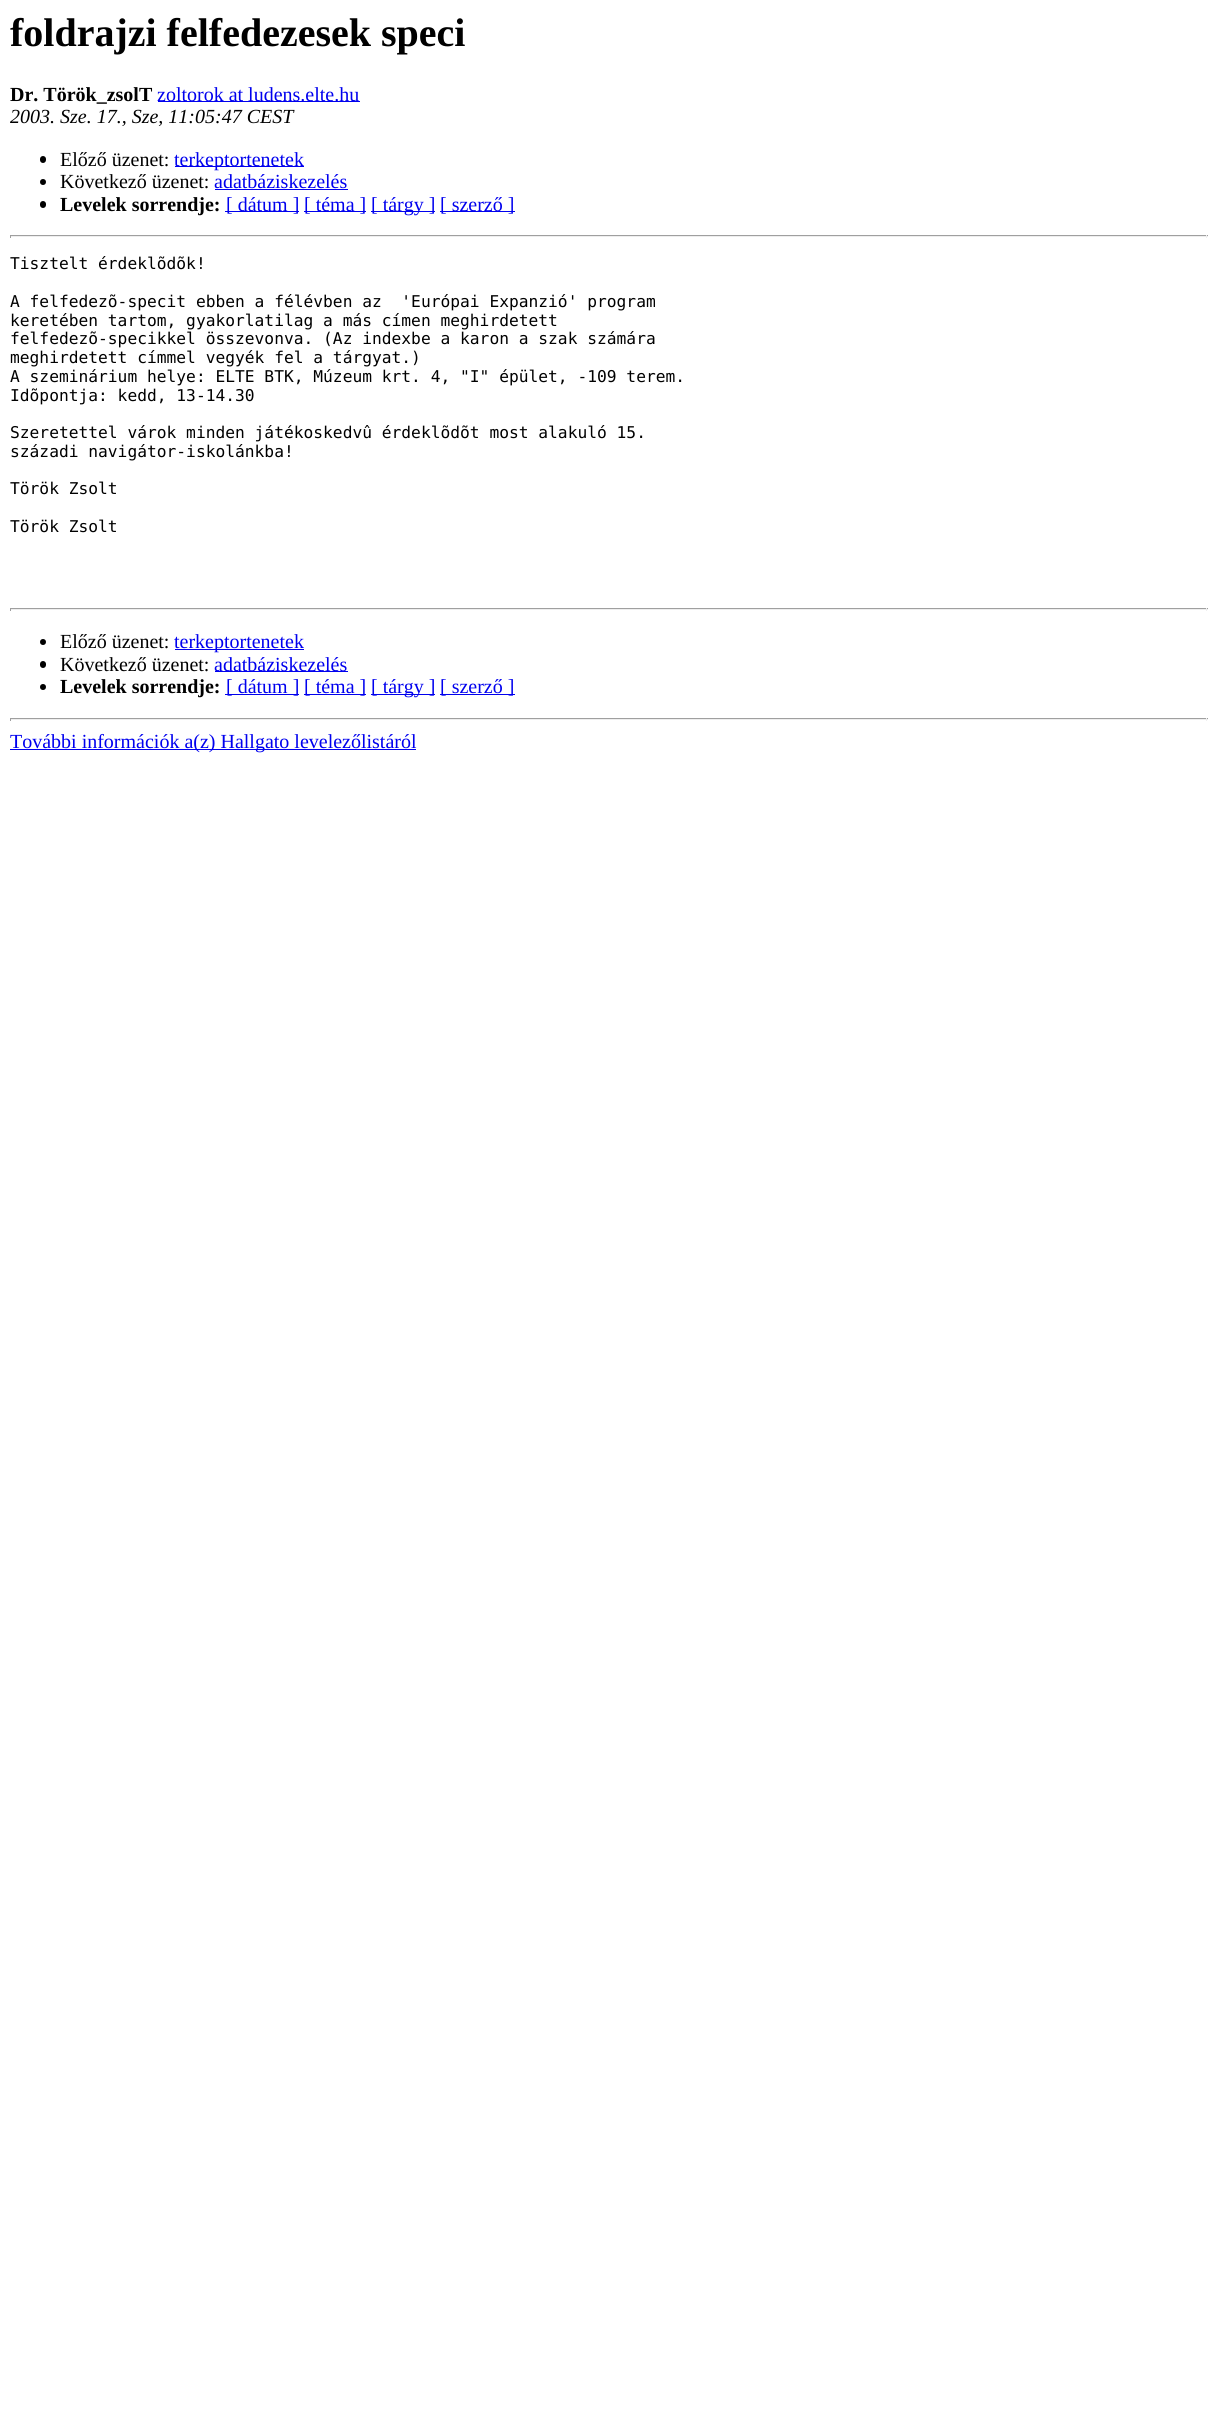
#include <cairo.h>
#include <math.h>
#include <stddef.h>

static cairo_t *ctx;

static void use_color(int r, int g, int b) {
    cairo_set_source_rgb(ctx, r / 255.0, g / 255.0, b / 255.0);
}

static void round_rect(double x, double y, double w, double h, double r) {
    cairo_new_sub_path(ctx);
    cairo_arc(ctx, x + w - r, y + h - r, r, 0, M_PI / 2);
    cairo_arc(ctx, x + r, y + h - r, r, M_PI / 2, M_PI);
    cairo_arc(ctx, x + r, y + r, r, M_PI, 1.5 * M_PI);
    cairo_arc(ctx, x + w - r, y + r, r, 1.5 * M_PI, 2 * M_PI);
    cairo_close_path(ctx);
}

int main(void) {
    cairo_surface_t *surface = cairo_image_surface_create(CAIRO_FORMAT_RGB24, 1217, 2415);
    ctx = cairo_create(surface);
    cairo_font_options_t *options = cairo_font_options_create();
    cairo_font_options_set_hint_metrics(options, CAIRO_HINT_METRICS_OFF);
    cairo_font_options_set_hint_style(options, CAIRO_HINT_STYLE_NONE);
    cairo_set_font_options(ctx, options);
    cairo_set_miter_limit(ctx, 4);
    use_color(255, 255, 255);
    cairo_paint(ctx);
    cairo_select_font_face(ctx, "Liberation Serif", CAIRO_FONT_SLANT_NORMAL, CAIRO_FONT_WEIGHT_BOLD);
    cairo_set_font_size(ctx, 40);
    use_color(0, 0, 0);
    cairo_move_to(ctx, 10, 46);
    cairo_show_text(ctx, "foldrajzi felfedezesek speci");
    cairo_set_font_size(ctx, 20);
    cairo_move_to(ctx, 10, 101);
    cairo_show_text(ctx, "Dr. Török_zsolT");
    use_color(0, 0, 238);
    cairo_rectangle(ctx, 158, 101, 202, 1);
    cairo_fill(ctx);
    cairo_select_font_face(ctx, "Liberation Serif", CAIRO_FONT_SLANT_NORMAL, CAIRO_FONT_WEIGHT_NORMAL);
    cairo_move_to(ctx, 157, 101);
    cairo_show_text(ctx, "zoltorok at ludens.elte.hu");
    cairo_select_font_face(ctx, "Liberation Serif", CAIRO_FONT_SLANT_ITALIC, CAIRO_FONT_WEIGHT_NORMAL);
    use_color(0, 0, 0);
    cairo_move_to(ctx, 10, 123);
    cairo_show_text(ctx, "2003. Sze. 17., Sze, 11:05:47 CEST");
    round_rect(40, 156, 6, 7, 3);
    cairo_fill(ctx);
    cairo_select_font_face(ctx, "Liberation Serif", CAIRO_FONT_SLANT_NORMAL, CAIRO_FONT_WEIGHT_NORMAL);
    cairo_move_to(ctx, 60, 166);
    cairo_show_text(ctx, "Előző üzenet:");
    use_color(0, 0, 238);
    cairo_rectangle(ctx, 175, 166, 129, 1);
    cairo_fill(ctx);
    cairo_move_to(ctx, 174, 166);
    cairo_show_text(ctx, "terkeptortenetek");
    use_color(0, 0, 0);
    cairo_new_path(ctx);
    cairo_arc(ctx, 43, 182, 3, 0, 2 * M_PI);
    cairo_fill(ctx);
    cairo_move_to(ctx, 60, 188);
    cairo_show_text(ctx, "Következő üzenet:");
    use_color(0, 0, 238);
    cairo_move_to(ctx, 214, 188);
    cairo_show_text(ctx, "adatbáziskezelés");
    cairo_rectangle(ctx, 215, 189, 133, 1);
    cairo_fill(ctx);
    use_color(0, 0, 0);
    round_rect(40, 201, 6, 7, 3);
    cairo_fill(ctx);
    cairo_select_font_face(ctx, "Liberation Serif", CAIRO_FONT_SLANT_NORMAL, CAIRO_FONT_WEIGHT_BOLD);
    cairo_move_to(ctx, 60, 211);
    cairo_show_text(ctx, "Levelek sorrendje:");
    use_color(0, 0, 238);
    cairo_rectangle(ctx, 225, 211, 74, 1);
    cairo_fill(ctx);
    cairo_select_font_face(ctx, "Liberation Serif", CAIRO_FONT_SLANT_NORMAL, CAIRO_FONT_WEIGHT_NORMAL);
    cairo_move_to(ctx, 226, 211);
    cairo_show_text(ctx, "[ dátum ]");
    cairo_rectangle(ctx, 304, 211, 62, 1);
    cairo_fill(ctx);
    cairo_move_to(ctx, 304, 211);
    cairo_show_text(ctx, "[ téma ]");
    cairo_rectangle(ctx, 371, 211, 64, 1);
    cairo_fill(ctx);
    cairo_move_to(ctx, 371, 211);
    cairo_show_text(ctx, "[ tárgy ]");
    cairo_rectangle(ctx, 440, 211, 75, 1);
    cairo_fill(ctx);
    cairo_move_to(ctx, 440, 211);
    cairo_show_text(ctx, "[ szerző ]");
    use_color(159, 159, 159);
    cairo_rectangle(ctx, 10, 235, 1198, 1);
    cairo_fill(ctx);
    use_color(238, 238, 238);
    cairo_rectangle(ctx, 1206, 235, 1, 3);
    cairo_fill(ctx);
    cairo_rectangle(ctx, 10, 236, 1198, 1);
    cairo_fill(ctx);
    use_color(159, 159, 159);
    cairo_rectangle(ctx, 10, 235, 1, 3);
    cairo_fill(ctx);
    cairo_select_font_face(ctx, "DejaVu Sans Mono", CAIRO_FONT_SLANT_NORMAL, CAIRO_FONT_WEIGHT_NORMAL);
    cairo_set_font_size(ctx, 16.25);
    use_color(0, 0, 0);
    cairo_move_to(ctx, 10, 269);
    cairo_show_text(ctx, "Tisztelt érdeklõdõk!");
    cairo_move_to(ctx, 10, 307);
    cairo_show_text(ctx, "A felfedezõ-specit ebben a félévben az  'Európai Expanzió' program");
    cairo_move_to(ctx, 10, 326);
    cairo_show_text(ctx, "keretében tartom, gyakorlatilag a más címen meghirdetett");
    cairo_move_to(ctx, 10, 344);
    cairo_show_text(ctx, "felfedezõ-specikkel összevonva. (Az indexbe a karon a szak számára");
    cairo_move_to(ctx, 10, 363);
    cairo_show_text(ctx, "meghirdetett címmel vegyék fel a tárgyat.)");
    cairo_move_to(ctx, 10, 382);
    cairo_show_text(ctx, "A szeminárium helye: ELTE BTK, Múzeum krt. 4, \"I\" épület, -109 terem.");
    cairo_move_to(ctx, 10, 401);
    cairo_show_text(ctx, "Idõpontja: kedd, 13-14.30");
    cairo_move_to(ctx, 10, 438);
    cairo_show_text(ctx, "Szeretettel várok minden játékoskedvû érdeklõdõt most alakuló 15.");
    cairo_move_to(ctx, 10, 457);
    cairo_show_text(ctx, "századi navigátor-iskolánkba!");
    cairo_move_to(ctx, 10, 494);
    cairo_show_text(ctx, "Török Zsolt");
    cairo_move_to(ctx, 10, 532);
    cairo_show_text(ctx, "Török Zsolt");
    use_color(159, 159, 159);
    cairo_rectangle(ctx, 10, 608, 1198, 1);
    cairo_fill(ctx);
    use_color(238, 238, 238);
    cairo_rectangle(ctx, 1206, 608, 1, 3);
    cairo_fill(ctx);
    cairo_rectangle(ctx, 10, 609, 1198, 1);
    cairo_fill(ctx);
    use_color(159, 159, 159);
    cairo_rectangle(ctx, 10, 608, 1, 3);
    cairo_fill(ctx);
    use_color(0, 0, 0);
    cairo_arc(ctx, 43, 642, 3, 0, 2 * M_PI);
    cairo_fill(ctx);
    cairo_select_font_face(ctx, "Liberation Serif", CAIRO_FONT_SLANT_NORMAL, CAIRO_FONT_WEIGHT_NORMAL);
    cairo_set_font_size(ctx, 20);
    cairo_move_to(ctx, 60, 648);
    cairo_show_text(ctx, "Előző üzenet:");
    use_color(0, 0, 238);
    cairo_rectangle(ctx, 175, 649, 129, 1);
    cairo_fill(ctx);
    cairo_move_to(ctx, 174, 648);
    cairo_show_text(ctx, "terkeptortenetek");
    use_color(0, 0, 0);
    round_rect(40, 661, 6, 7, 3);
    cairo_fill(ctx);
    cairo_move_to(ctx, 60, 671);
    cairo_show_text(ctx, "Következő üzenet:");
    use_color(0, 0, 238);
    cairo_rectangle(ctx, 215, 671, 133, 1);
    cairo_fill(ctx);
    cairo_move_to(ctx, 214, 671);
    cairo_show_text(ctx, "adatbáziskezelés");
    use_color(0, 0, 0);
    cairo_new_path(ctx);
    cairo_arc(ctx, 43, 687, 3, 0, 2 * M_PI);
    cairo_fill(ctx);
    cairo_select_font_face(ctx, "Liberation Serif", CAIRO_FONT_SLANT_NORMAL, CAIRO_FONT_WEIGHT_BOLD);
    cairo_move_to(ctx, 60, 693);
    cairo_show_text(ctx, "Levelek sorrendje:");
    use_color(0, 0, 238);
    cairo_rectangle(ctx, 225, 694, 74, 1);
    cairo_fill(ctx);
    cairo_select_font_face(ctx, "Liberation Serif", CAIRO_FONT_SLANT_NORMAL, CAIRO_FONT_WEIGHT_NORMAL);
    cairo_move_to(ctx, 226, 693);
    cairo_show_text(ctx, "[ dátum ]");
    cairo_rectangle(ctx, 304, 694, 62, 1);
    cairo_fill(ctx);
    cairo_move_to(ctx, 304, 693);
    cairo_show_text(ctx, "[ téma ]");
    cairo_rectangle(ctx, 371, 694, 64, 1);
    cairo_fill(ctx);
    cairo_move_to(ctx, 371, 693);
    cairo_show_text(ctx, "[ tárgy ]");
    cairo_rectangle(ctx, 440, 694, 75, 1);
    cairo_fill(ctx);
    cairo_move_to(ctx, 440, 693);
    cairo_show_text(ctx, "[ szerző ]");
    use_color(159, 159, 159);
    cairo_rectangle(ctx, 10, 718, 1198, 1);
    cairo_fill(ctx);
    use_color(238, 238, 238);
    cairo_rectangle(ctx, 1206, 718, 1, 3);
    cairo_fill(ctx);
    cairo_rectangle(ctx, 10, 719, 1198, 1);
    cairo_fill(ctx);
    use_color(159, 159, 159);
    cairo_rectangle(ctx, 10, 718, 1, 3);
    cairo_fill(ctx);
    use_color(0, 0, 238);
    cairo_rectangle(ctx, 10, 749, 406, 1);
    cairo_fill(ctx);
    cairo_move_to(ctx, 10, 748);
    cairo_show_text(ctx, "További információk a(z) Hallgato levelezőlistáról");
    cairo_surface_write_to_png(surface, "result.png");
    cairo_font_options_destroy(options);
    cairo_destroy(ctx);
    cairo_surface_destroy(surface);
    return 0;
}
